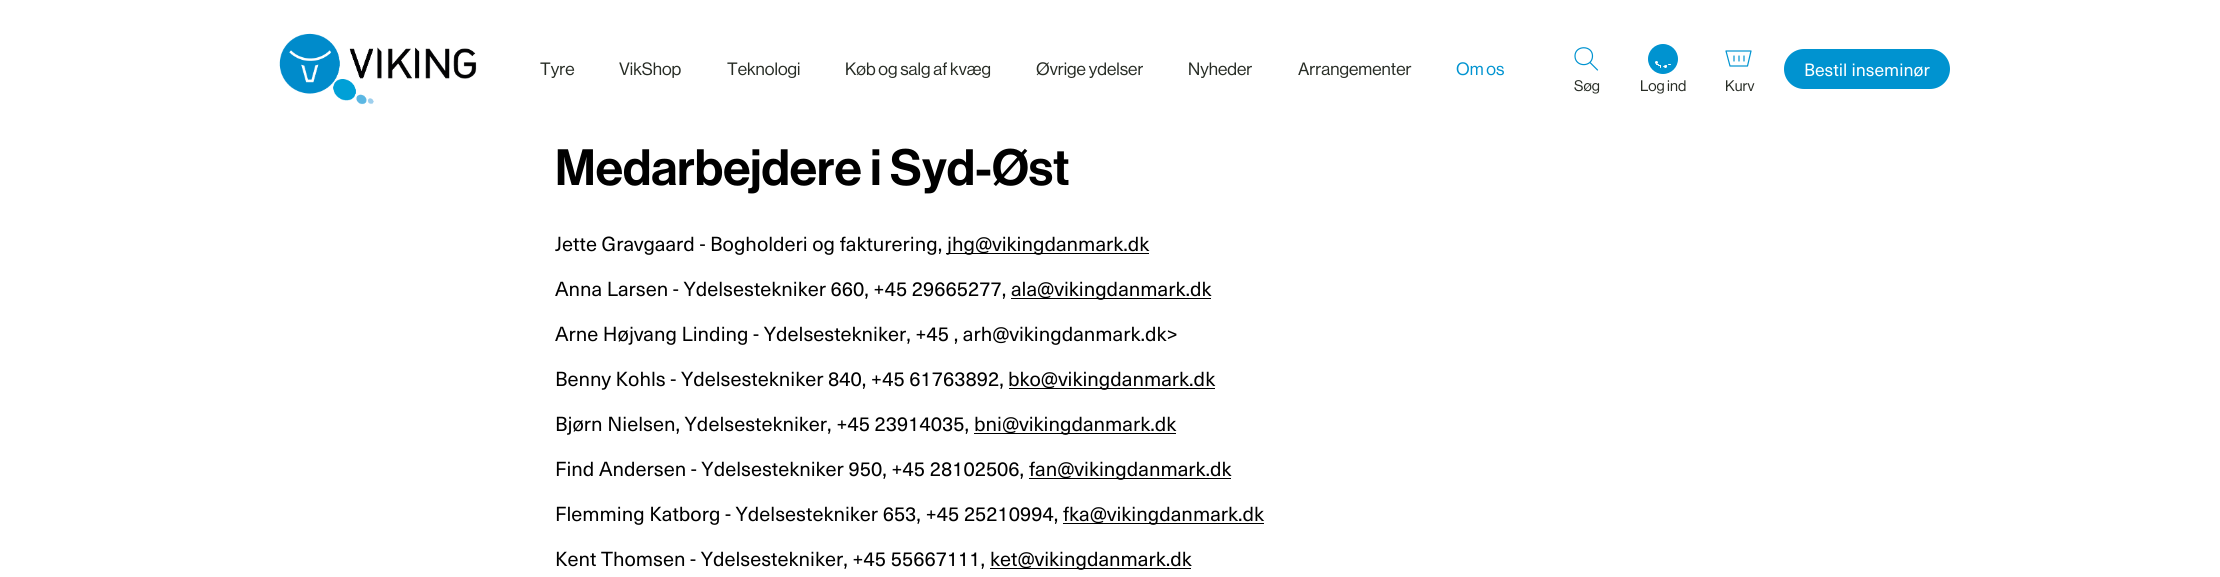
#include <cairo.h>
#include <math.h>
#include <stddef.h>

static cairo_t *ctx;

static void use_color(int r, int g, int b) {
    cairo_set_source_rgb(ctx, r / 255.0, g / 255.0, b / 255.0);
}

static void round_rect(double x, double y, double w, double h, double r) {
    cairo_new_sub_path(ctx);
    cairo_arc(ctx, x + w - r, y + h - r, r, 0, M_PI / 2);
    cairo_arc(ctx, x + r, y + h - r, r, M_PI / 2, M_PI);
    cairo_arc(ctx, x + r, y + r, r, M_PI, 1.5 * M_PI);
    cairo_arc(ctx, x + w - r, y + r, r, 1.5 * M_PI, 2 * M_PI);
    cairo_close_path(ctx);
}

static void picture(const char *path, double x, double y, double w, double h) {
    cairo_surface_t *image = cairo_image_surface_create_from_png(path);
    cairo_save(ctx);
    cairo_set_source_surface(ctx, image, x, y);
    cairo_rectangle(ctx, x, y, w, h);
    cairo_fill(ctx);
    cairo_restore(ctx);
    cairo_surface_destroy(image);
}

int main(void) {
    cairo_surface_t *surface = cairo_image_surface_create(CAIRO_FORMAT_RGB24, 2220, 577);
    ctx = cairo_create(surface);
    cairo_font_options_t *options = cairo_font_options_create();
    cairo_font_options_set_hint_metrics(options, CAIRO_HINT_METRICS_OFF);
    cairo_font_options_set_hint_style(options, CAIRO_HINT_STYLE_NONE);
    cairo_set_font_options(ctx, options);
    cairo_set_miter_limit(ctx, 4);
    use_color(255, 255, 255);
    cairo_paint(ctx);
    picture("img1.png", 279, 33, 198, 72);
    cairo_select_font_face(ctx, "Neue Haas Grotesk", CAIRO_FONT_SLANT_NORMAL, CAIRO_FONT_WEIGHT_NORMAL);
    cairo_set_font_size(ctx, 17.5);
    use_color(39, 44, 37);
    cairo_move_to(ctx, 540, 75);
    cairo_show_text(ctx, "Tyre");
    cairo_move_to(ctx, 619, 75);
    cairo_show_text(ctx, "VikShop");
    cairo_move_to(ctx, 727, 75);
    cairo_show_text(ctx, "Teknologi");
    cairo_move_to(ctx, 845, 75);
    cairo_show_text(ctx, "Køb og salg af kvæg");
    cairo_move_to(ctx, 1036, 75);
    cairo_show_text(ctx, "Øvrige ydelser");
    cairo_move_to(ctx, 1188, 75);
    cairo_show_text(ctx, "Nyheder");
    cairo_move_to(ctx, 1298, 75);
    cairo_show_text(ctx, "Arrangementer");
    use_color(0, 147, 208);
    cairo_move_to(ctx, 1456, 75);
    cairo_show_text(ctx, "Om os");
    round_rect(1784, 49, 166, 40, 20);
    cairo_fill(ctx);
    cairo_select_font_face(ctx, "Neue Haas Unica", CAIRO_FONT_SLANT_NORMAL, CAIRO_FONT_WEIGHT_NORMAL);
    use_color(255, 255, 255);
    cairo_move_to(ctx, 1804, 76);
    cairo_show_text(ctx, "Bestil inseminør");
    cairo_new_path(ctx);
    cairo_move_to(ctx, 1597.5, 70);
    cairo_line_to(ctx, 1590, 62.5);
    cairo_move_to(ctx, 1592.5, 56);
    cairo_curve_to(ctx, 1592.5, 67.5, 1575, 67.5, 1575, 56);
    cairo_curve_to(ctx, 1575, 45, 1592.5, 45, 1592.5, 56);
    cairo_close_path(ctx);
    use_color(0, 147, 208);
    cairo_set_line_width(ctx, 1.2);
    cairo_set_line_cap(ctx, CAIRO_LINE_CAP_ROUND);
    cairo_set_line_join(ctx, CAIRO_LINE_JOIN_ROUND);
    cairo_stroke(ctx);
    cairo_select_font_face(ctx, "Neue Haas Grotesk", CAIRO_FONT_SLANT_NORMAL, CAIRO_FONT_WEIGHT_NORMAL);
    cairo_set_font_size(ctx, 15);
    use_color(39, 44, 37);
    cairo_move_to(ctx, 1574, 91);
    cairo_show_text(ctx, "Søg");
    use_color(0, 147, 208);
    cairo_new_path(ctx);
    cairo_arc(ctx, 1663, 59, 15, 0, 2 * M_PI);
    cairo_fill(ctx);
    use_color(255, 255, 255);
    cairo_arc(ctx, 1656.5, 62.5, 1.5, 0, 2 * M_PI);
    cairo_fill(ctx);
    round_rect(1656, 64, 3, 1, 0.5);
    cairo_fill(ctx);
    round_rect(1668, 64, 3, 1, 0.5);
    cairo_fill(ctx);
    round_rect(1660, 65, 1, 3, 0.5);
    cairo_fill(ctx);
    round_rect(1658, 65, 3, 1, 0.5);
    cairo_fill(ctx);
    cairo_arc(ctx, 1666.5, 65.5, 0.5, 0, 2 * M_PI);
    cairo_fill(ctx);
    cairo_arc(ctx, 1665.5, 66.5, 1.5, 0, 2 * M_PI);
    cairo_fill(ctx);
    cairo_arc(ctx, 1663.5, 66.5, 0.5, 0, 2 * M_PI);
    cairo_fill(ctx);
    use_color(39, 44, 37);
    cairo_move_to(ctx, 1640, 91);
    cairo_show_text(ctx, "Log ind");
    cairo_new_path(ctx);
    cairo_move_to(ctx, 1751, 51);
    cairo_line_to(ctx, 1726, 51);
    cairo_line_to(ctx, 1730, 66);
    cairo_line_to(ctx, 1747.5, 66);
    cairo_close_path(ctx);
    cairo_move_to(ctx, 1734, 56);
    cairo_line_to(ctx, 1734, 61);
    cairo_move_to(ctx, 1744, 56);
    cairo_line_to(ctx, 1744, 61);
    cairo_move_to(ctx, 1739, 56);
    cairo_line_to(ctx, 1739, 61);
    use_color(0, 147, 208);
    cairo_stroke(ctx);
    use_color(39, 44, 37);
    cairo_move_to(ctx, 1725, 91);
    cairo_show_text(ctx, "Kurv");
    cairo_select_font_face(ctx, "Neue Haas Grotesk Medium", CAIRO_FONT_SLANT_NORMAL, CAIRO_FONT_WEIGHT_NORMAL);
    cairo_set_font_size(ctx, 50);
    use_color(0, 0, 0);
    cairo_move_to(ctx, 555, 185);
    cairo_show_text(ctx, "Medarbejdere i Syd-Øst");
    cairo_select_font_face(ctx, "Neue Haas Unica", CAIRO_FONT_SLANT_NORMAL, CAIRO_FONT_WEIGHT_NORMAL);
    cairo_set_font_size(ctx, 20);
    cairo_move_to(ctx, 555, 251);
    cairo_show_text(ctx, "Jette Gravgaard - Bogholderi og fakturering,");
    cairo_rectangle(ctx, 946, 253, 203, 1);
    cairo_fill(ctx);
    cairo_move_to(ctx, 947, 251);
    cairo_show_text(ctx, "jhg@vikingdanmark.dk");
    cairo_move_to(ctx, 555, 296);
    cairo_show_text(ctx, "Anna Larsen - Ydelsestekniker 660, +45 29665277,");
    cairo_rectangle(ctx, 1011, 298, 200, 1);
    cairo_fill(ctx);
    cairo_move_to(ctx, 1011, 296);
    cairo_show_text(ctx, "ala@vikingdanmark.dk");
    cairo_move_to(ctx, 555, 341);
    cairo_show_text(ctx, "Arne Højvang Linding - Ydelsestekniker, +45 , arh@vikingdanmark.dk>");
    cairo_move_to(ctx, 555, 386);
    cairo_show_text(ctx, "Benny Kohls - Ydelsestekniker 840, +45 61763892,");
    cairo_rectangle(ctx, 1009, 388, 206, 1);
    cairo_fill(ctx);
    cairo_move_to(ctx, 1008, 386);
    cairo_show_text(ctx, "bko@vikingdanmark.dk");
    cairo_move_to(ctx, 555, 431);
    cairo_show_text(ctx, "Bjørn Nielsen, Ydelsestekniker, +45 23914035,");
    cairo_rectangle(ctx, 974, 433, 202, 1);
    cairo_fill(ctx);
    cairo_move_to(ctx, 974, 431);
    cairo_show_text(ctx, "bni@vikingdanmark.dk");
    cairo_move_to(ctx, 555, 476);
    cairo_show_text(ctx, "Find Andersen - Ydelsestekniker 950, +45 28102506,");
    cairo_rectangle(ctx, 1029, 478, 202, 1);
    cairo_fill(ctx);
    cairo_move_to(ctx, 1029, 476);
    cairo_show_text(ctx, "fan@vikingdanmark.dk");
    cairo_move_to(ctx, 555, 521);
    cairo_show_text(ctx, "Flemming Katborg - Ydelsestekniker 653, +45 25210994,");
    cairo_rectangle(ctx, 1063, 523, 201, 1);
    cairo_fill(ctx);
    cairo_move_to(ctx, 1063, 521);
    cairo_show_text(ctx, "fka@vikingdanmark.dk");
    cairo_move_to(ctx, 555, 566);
    cairo_show_text(ctx, "Kent Thomsen - Ydelsestekniker, +45 55667111,");
    cairo_rectangle(ctx, 990, 568, 201, 1);
    cairo_fill(ctx);
    cairo_move_to(ctx, 990, 566);
    cairo_show_text(ctx, "ket@vikingdanmark.dk");
    cairo_surface_write_to_png(surface, "result.png");
    cairo_font_options_destroy(options);
    cairo_destroy(ctx);
    cairo_surface_destroy(surface);
    return 0;
}
